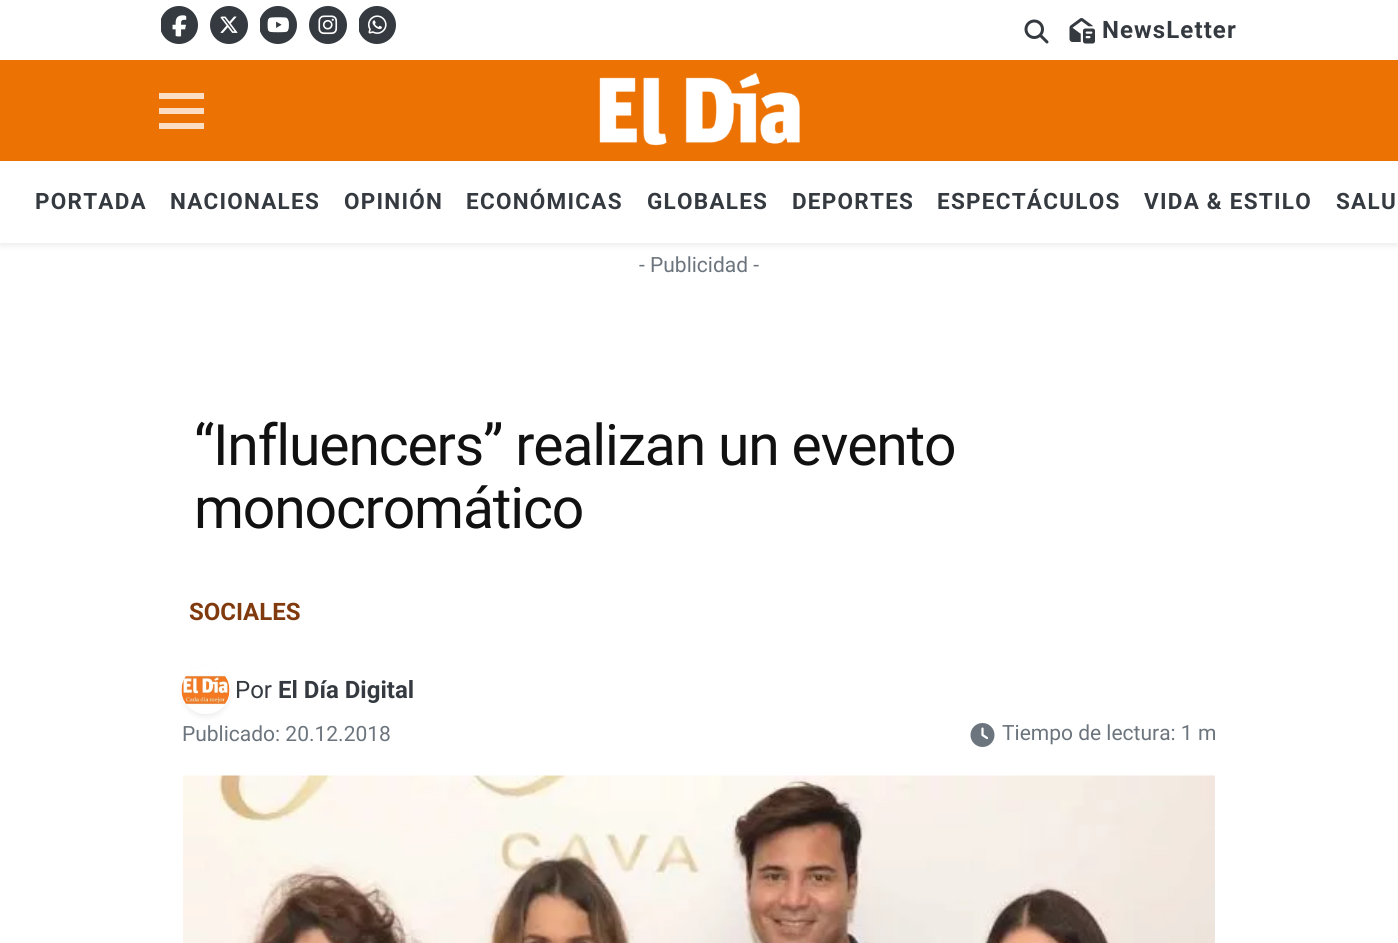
#include <cairo.h>
#include <math.h>
#include <stddef.h>

static cairo_t *ctx;

static void use_color(int r, int g, int b) {
    cairo_set_source_rgb(ctx, r / 255.0, g / 255.0, b / 255.0);
}

static void spaced_text(double x, double y, const char *s, double letter, double word) {
    cairo_move_to(ctx, x, y);
    while (*s) {
        char ch[5] = {0};
        int n = 0;
        do ch[n++] = *s++; while ((*s & 0xC0) == 0x80);
        cairo_show_text(ctx, ch);
        cairo_rel_move_to(ctx, letter + word * (*ch == ' '), 0);
    }
}

static void round_rect(double x, double y, double w, double h, double r) {
    cairo_new_sub_path(ctx);
    cairo_arc(ctx, x + w - r, y + h - r, r, 0, M_PI / 2);
    cairo_arc(ctx, x + r, y + h - r, r, M_PI / 2, M_PI);
    cairo_arc(ctx, x + r, y + r, r, M_PI, 1.5 * M_PI);
    cairo_arc(ctx, x + w - r, y + r, r, 1.5 * M_PI, 2 * M_PI);
    cairo_close_path(ctx);
}

static void shadow(double x, double y, double w, double h, double r, double blur, double alpha) {
    cairo_push_group_with_content(ctx, CAIRO_CONTENT_ALPHA);
    cairo_set_operator(ctx, CAIRO_OPERATOR_SOURCE);
    for (int i = 15; i >= -15 && fmin(w, h) + blur * i / 3 > 0; i -= 2) {
        double e = blur * i / 6;
        cairo_set_source_rgba(ctx, 0, 0, 0, alpha * erfc((i - 1) / 8.5) / 2);
        round_rect(x - e, y - e, w + 2 * e, h + 2 * e, fmax(0, fmin(r + e + blur * .6, fmin(w, h) / 2 + e)));
        cairo_fill(ctx);
    }
    cairo_pattern_t *soft = cairo_pop_group(ctx);
    cairo_mask(ctx, soft);
    cairo_pattern_destroy(soft);
}

static void picture(const char *path, double x, double y, double w, double h) {
    cairo_surface_t *image = cairo_image_surface_create_from_png(path);
    cairo_save(ctx);
    cairo_set_source_surface(ctx, image, x, y);
    cairo_rectangle(ctx, x, y, w, h);
    cairo_fill(ctx);
    cairo_restore(ctx);
    cairo_surface_destroy(image);
}

int main(void) {
    cairo_surface_t *surface = cairo_image_surface_create(CAIRO_FORMAT_RGB24, 1398, 943);
    ctx = cairo_create(surface);
    cairo_font_options_t *options = cairo_font_options_create();
    cairo_font_options_set_hint_metrics(options, CAIRO_HINT_METRICS_OFF);
    cairo_font_options_set_hint_style(options, CAIRO_HINT_STYLE_NONE);
    cairo_set_font_options(ctx, options);
    cairo_set_miter_limit(ctx, 4);
    use_color(255, 255, 255);
    cairo_paint(ctx);
    picture("img1.png", 161, 6, 37, 38);
    picture("img2.png", 210, 6, 38, 38);
    picture("img3.png", 260, 6, 37, 38);
    picture("img4.png", 309, 6, 38, 38);
    picture("img5.png", 359, 6, 37, 38);
    picture("img6.png", 1024, 19, 25, 25);
    picture("img7.png", 1069, 18, 26, 26);
    cairo_select_font_face(ctx, "Roboto", CAIRO_FONT_SLANT_NORMAL, CAIRO_FONT_WEIGHT_BOLD);
    cairo_set_font_size(ctx, 24);
    use_color(52, 58, 64);
    spaced_text(1102, 38, "NewsLetter", 1.1, 0);
    use_color(236, 114, 3);
    cairo_rectangle(ctx, 0, 60, 1398, 101);
    cairo_fill(ctx);
    use_color(250, 221, 194);
    cairo_rectangle(ctx, 159, 93, 45, 6);
    cairo_fill(ctx);
    cairo_rectangle(ctx, 159, 108, 45, 6);
    cairo_fill(ctx);
    cairo_rectangle(ctx, 159, 123, 45, 6);
    cairo_fill(ctx);
    picture("img8.png", 599, 72, 201, 74);
    use_color(0, 0, 0);
    shadow(0, 164, 1398, 82, 0, 3, 0.07);
    use_color(255, 255, 255);
    cairo_rectangle(ctx, 0, 161, 1398, 82);
    cairo_fill(ctx);
    cairo_set_font_size(ctx, 22.5);
    use_color(52, 58, 64);
    spaced_text(35, 209, "PORTADA", 1.25, 0);
    spaced_text(170, 209, "NACIONALES", 1.25, 0);
    spaced_text(344, 209, "OPINIÓN", 1.25, 0);
    spaced_text(466, 209, "ECONÓMICAS", 1.25, 0);
    spaced_text(647, 209, "GLOBALES", 1.25, 0);
    spaced_text(792, 209, "DEPORTES", 1.25, 0);
    spaced_text(937, 209, "ESPECTÁCULOS", 1.25, 0);
    spaced_text(1144, 209, "VIDA & ESTILO", 1.25, 0);
    spaced_text(1336, 209, "SALU", 1.25, 0);
    cairo_select_font_face(ctx, "Roboto", CAIRO_FONT_SLANT_NORMAL, CAIRO_FONT_WEIGHT_NORMAL);
    cairo_set_font_size(ctx, 21);
    use_color(108, 117, 125);
    cairo_move_to(ctx, 639, 272);
    cairo_show_text(ctx, "- Publicidad -");
    cairo_set_font_size(ctx, 57);
    use_color(17, 17, 17);
    spaced_text(194, 465, "“Influencers” realizan un evento", -1.15, 0);
    spaced_text(194, 528, "monocromático", -1.15, 0);
    cairo_select_font_face(ctx, "Roboto", CAIRO_FONT_SLANT_NORMAL, CAIRO_FONT_WEIGHT_BOLD);
    cairo_set_font_size(ctx, 24);
    use_color(128, 58, 14);
    cairo_move_to(ctx, 189, 620);
    cairo_show_text(ctx, "SOCIALES");
    cairo_save(ctx);
    cairo_set_fill_rule(ctx, CAIRO_FILL_RULE_EVEN_ODD);
    cairo_new_path(ctx);
    cairo_move_to(ctx, 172, 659);
    cairo_line_to(ctx, 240, 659);
    cairo_line_to(ctx, 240, 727);
    cairo_line_to(ctx, 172, 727);
    cairo_close_path(ctx);
    cairo_move_to(ctx, 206, 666);
    cairo_curve_to(ctx, 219.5, 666, 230, 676.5, 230, 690);
    cairo_curve_to(ctx, 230, 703.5, 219.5, 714, 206, 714);
    cairo_curve_to(ctx, 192.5, 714, 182, 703.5, 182, 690);
    cairo_curve_to(ctx, 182, 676.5, 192.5, 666, 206, 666);
    cairo_close_path(ctx);
    cairo_clip(ctx);
    use_color(0, 0, 0);
    shadow(182, 669, 48, 48, 24, 3, 0.07);
    cairo_restore(ctx);
    picture("img9.png", 181, 675, 49, 30);
    cairo_select_font_face(ctx, "Roboto", CAIRO_FONT_SLANT_NORMAL, CAIRO_FONT_WEIGHT_NORMAL);
    use_color(52, 58, 64);
    cairo_move_to(ctx, 235, 698);
    cairo_show_text(ctx, "Por");
    cairo_select_font_face(ctx, "Roboto", CAIRO_FONT_SLANT_NORMAL, CAIRO_FONT_WEIGHT_BOLD);
    cairo_move_to(ctx, 278, 698);
    cairo_show_text(ctx, "El Día Digital");
    cairo_select_font_face(ctx, "Roboto", CAIRO_FONT_SLANT_NORMAL, CAIRO_FONT_WEIGHT_NORMAL);
    cairo_set_font_size(ctx, 21);
    use_color(108, 117, 125);
    cairo_move_to(ctx, 182, 741);
    cairo_show_text(ctx, "Publicado: 20.12.2018");
    picture("img10.png", 970, 723, 25, 24);
    cairo_move_to(ctx, 1002, 740);
    cairo_show_text(ctx, "Tiempo de lectura: 1 m");
    picture("img11.png", 183, 775, 1032, 168);
    cairo_surface_write_to_png(surface, "result.png");
    cairo_font_options_destroy(options);
    cairo_destroy(ctx);
    cairo_surface_destroy(surface);
    return 0;
}
